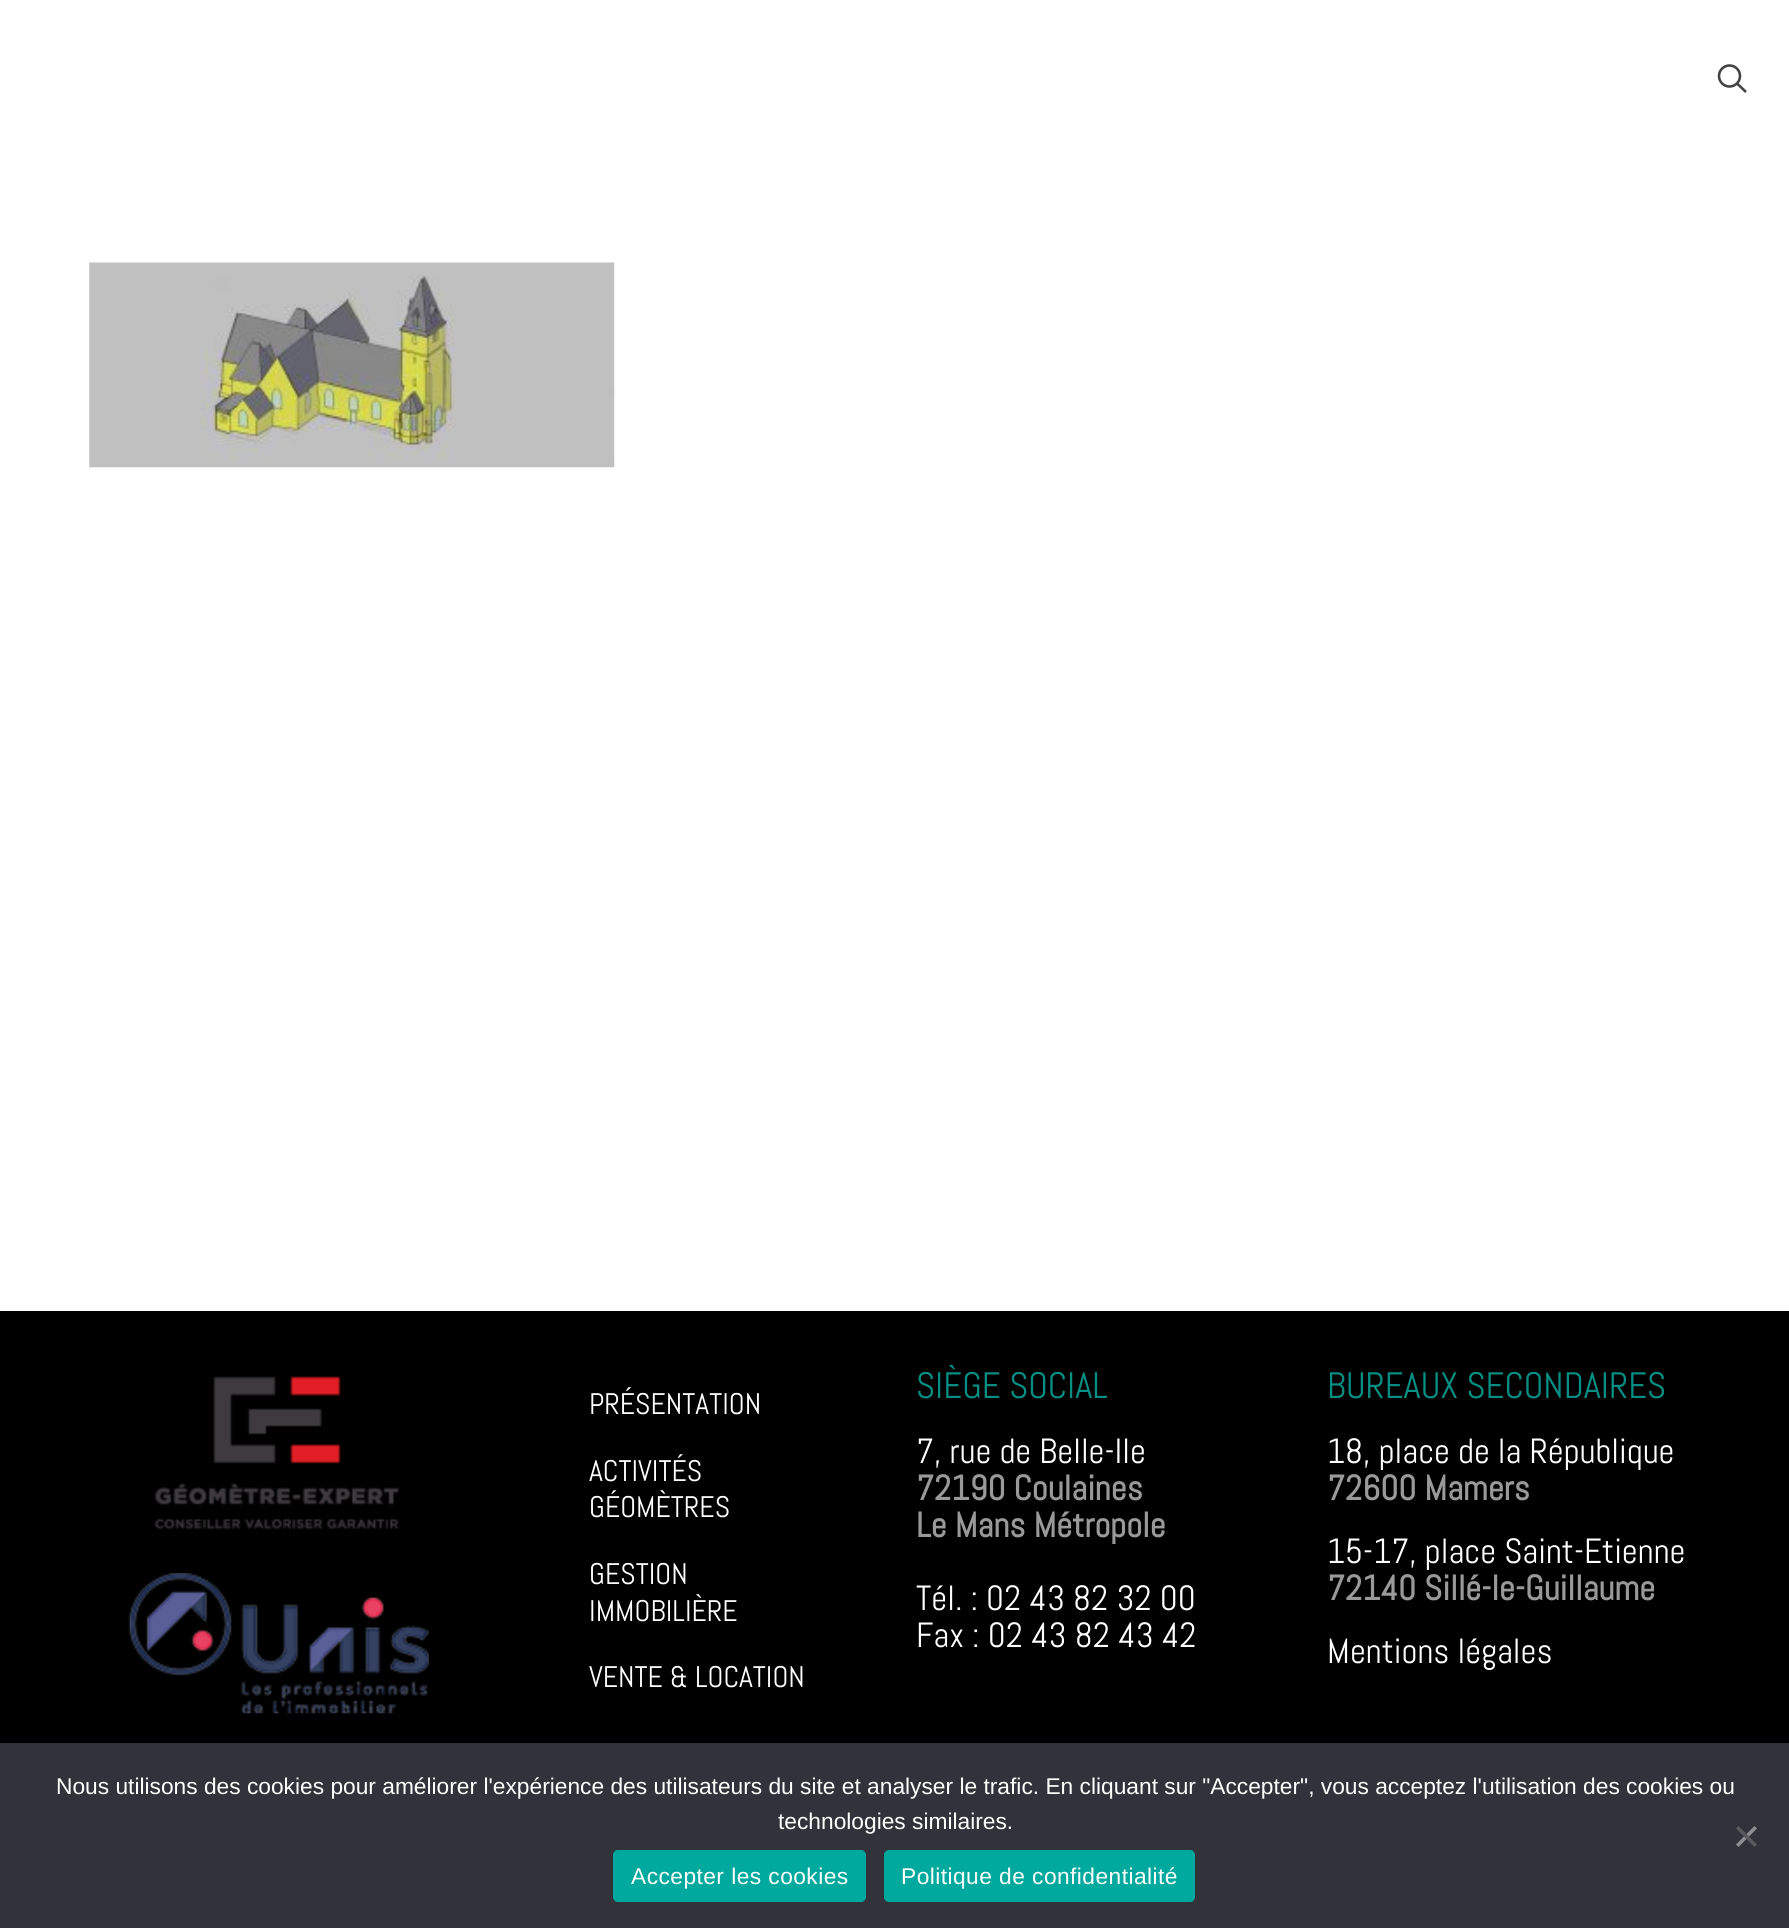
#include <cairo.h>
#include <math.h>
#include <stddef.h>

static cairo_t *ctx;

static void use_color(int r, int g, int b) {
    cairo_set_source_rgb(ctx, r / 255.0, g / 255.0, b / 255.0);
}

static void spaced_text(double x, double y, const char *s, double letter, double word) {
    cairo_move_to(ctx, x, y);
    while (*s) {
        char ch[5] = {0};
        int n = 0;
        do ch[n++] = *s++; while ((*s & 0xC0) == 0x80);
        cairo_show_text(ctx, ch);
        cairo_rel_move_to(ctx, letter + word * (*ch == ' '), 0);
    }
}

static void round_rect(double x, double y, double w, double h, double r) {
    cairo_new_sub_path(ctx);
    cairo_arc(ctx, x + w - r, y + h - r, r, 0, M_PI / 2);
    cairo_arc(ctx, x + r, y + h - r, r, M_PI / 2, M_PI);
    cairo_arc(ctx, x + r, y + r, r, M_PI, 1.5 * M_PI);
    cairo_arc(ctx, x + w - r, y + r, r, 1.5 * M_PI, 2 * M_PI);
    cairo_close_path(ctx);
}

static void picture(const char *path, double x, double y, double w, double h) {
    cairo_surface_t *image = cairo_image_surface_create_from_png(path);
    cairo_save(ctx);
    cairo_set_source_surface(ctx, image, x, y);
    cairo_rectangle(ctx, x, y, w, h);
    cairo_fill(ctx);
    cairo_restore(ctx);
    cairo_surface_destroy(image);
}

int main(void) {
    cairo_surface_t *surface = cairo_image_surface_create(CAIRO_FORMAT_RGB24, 1789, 1928);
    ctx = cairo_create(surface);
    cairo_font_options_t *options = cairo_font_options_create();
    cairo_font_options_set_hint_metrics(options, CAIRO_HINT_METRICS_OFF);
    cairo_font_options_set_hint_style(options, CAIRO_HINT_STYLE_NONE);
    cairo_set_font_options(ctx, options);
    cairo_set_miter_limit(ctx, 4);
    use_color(255, 255, 255);
    cairo_paint(ctx);
    cairo_arc(ctx, 1729.5, 76, 10.5, 0, 2 * M_PI);
    use_color(68, 68, 68);
    cairo_set_line_width(ctx, 2.6);
    cairo_stroke(ctx);
    cairo_new_path(ctx);
    cairo_move_to(ctx, 1737, 83.5);
    cairo_line_to(ctx, 1746, 92);
    cairo_stroke(ctx);
    picture("img1.png", 89, 262, 526, 206);
    use_color(0, 0, 0);
    cairo_rectangle(ctx, 0, 1311, 1789, 432);
    cairo_fill(ctx);
    picture("img2.png", 154, 1376, 245, 154);
    picture("img3.png", 128, 1573, 301, 141);
    cairo_select_font_face(ctx, "Abel", CAIRO_FONT_SLANT_NORMAL, CAIRO_FONT_WEIGHT_NORMAL);
    cairo_set_font_size(ctx, 29.75);
    use_color(255, 255, 255);
    cairo_move_to(ctx, 589, 1414);
    cairo_show_text(ctx, "PRÉSENTATION");
    cairo_move_to(ctx, 589, 1481);
    cairo_show_text(ctx, "ACTIVITÉS");
    cairo_move_to(ctx, 589, 1517);
    cairo_show_text(ctx, "GÉOMÈTRES");
    cairo_move_to(ctx, 589, 1584);
    cairo_show_text(ctx, "GESTION");
    cairo_move_to(ctx, 589, 1621);
    cairo_show_text(ctx, "IMMOBILIÈRE");
    cairo_move_to(ctx, 589, 1687);
    cairo_show_text(ctx, "VENTE & LOCATION");
    cairo_set_font_size(ctx, 36.75);
    use_color(5, 142, 132);
    cairo_move_to(ctx, 916, 1398);
    cairo_show_text(ctx, "SIÈGE SOCIAL");
    cairo_set_font_size(ctx, 35);
    use_color(255, 255, 255);
    cairo_move_to(ctx, 916, 1463);
    cairo_show_text(ctx, "7, rue de Belle-Ile");
    cairo_select_font_face(ctx, "Abel", CAIRO_FONT_SLANT_NORMAL, CAIRO_FONT_WEIGHT_BOLD);
    use_color(153, 153, 153);
    cairo_move_to(ctx, 916, 1500);
    cairo_show_text(ctx, "72190 Coulaines");
    cairo_move_to(ctx, 916, 1537);
    cairo_show_text(ctx, "Le Mans Métropole");
    cairo_select_font_face(ctx, "Abel", CAIRO_FONT_SLANT_NORMAL, CAIRO_FONT_WEIGHT_NORMAL);
    use_color(255, 255, 255);
    cairo_move_to(ctx, 916, 1610);
    cairo_show_text(ctx, "Tél. : 02 43 82 32 00");
    cairo_move_to(ctx, 916, 1647);
    cairo_show_text(ctx, "Fax : 02 43 82 43 42");
    cairo_set_font_size(ctx, 36.75);
    use_color(5, 142, 132);
    cairo_move_to(ctx, 1327, 1398);
    cairo_show_text(ctx, "BUREAUX SECONDAIRES");
    cairo_set_font_size(ctx, 35);
    use_color(255, 255, 255);
    cairo_move_to(ctx, 1327, 1463);
    cairo_show_text(ctx, "18, place de la République");
    cairo_select_font_face(ctx, "Abel", CAIRO_FONT_SLANT_NORMAL, CAIRO_FONT_WEIGHT_BOLD);
    use_color(153, 153, 153);
    cairo_move_to(ctx, 1327, 1500);
    cairo_show_text(ctx, "72600 Mamers");
    cairo_select_font_face(ctx, "Abel", CAIRO_FONT_SLANT_NORMAL, CAIRO_FONT_WEIGHT_NORMAL);
    use_color(255, 255, 255);
    cairo_move_to(ctx, 1327, 1563);
    cairo_show_text(ctx, "15-17, place Saint-Etienne");
    cairo_select_font_face(ctx, "Abel", CAIRO_FONT_SLANT_NORMAL, CAIRO_FONT_WEIGHT_BOLD);
    use_color(153, 153, 153);
    cairo_move_to(ctx, 1327, 1600);
    cairo_show_text(ctx, "72140 Sillé-le-Guillaume");
    cairo_select_font_face(ctx, "Abel", CAIRO_FONT_SLANT_NORMAL, CAIRO_FONT_WEIGHT_NORMAL);
    use_color(255, 255, 255);
    cairo_move_to(ctx, 1327, 1663);
    cairo_show_text(ctx, "Mentions légales");
    use_color(50, 50, 58);
    cairo_rectangle(ctx, 0, 1743, 1789, 185);
    cairo_fill(ctx);
    cairo_select_font_face(ctx, "Liberation Sans", CAIRO_FONT_SLANT_NORMAL, CAIRO_FONT_WEIGHT_NORMAL);
    cairo_set_font_size(ctx, 22.75);
    use_color(255, 255, 255);
    cairo_move_to(ctx, 56, 1794);
    cairo_show_text(ctx, "Nous utilisons des cookies pour améliorer l'expérience des utilisateurs du site et analyser le trafic. En cliquant sur \"Accepter\", vous acceptez l'utilisation des cookies ou");
    cairo_move_to(ctx, 778, 1829);
    cairo_show_text(ctx, "technologies similaires.");
    use_color(142, 142, 146);
    cairo_new_path(ctx);
    cairo_move_to(ctx, 1754.5, 1826);
    cairo_line_to(ctx, 1757, 1828.5);
    cairo_line_to(ctx, 1738.5, 1847);
    cairo_line_to(ctx, 1736, 1844.5);
    cairo_close_path(ctx);
    cairo_fill(ctx);
    use_color(89, 89, 93);
    cairo_new_path(ctx);
    cairo_move_to(ctx, 1736, 1828.5);
    cairo_line_to(ctx, 1738.5, 1826);
    cairo_line_to(ctx, 1757, 1844.5);
    cairo_line_to(ctx, 1754.5, 1847);
    cairo_close_path(ctx);
    cairo_fill(ctx);
    use_color(0, 169, 157);
    round_rect(613, 1850, 253, 52, 5);
    cairo_fill(ctx);
    use_color(255, 255, 255);
    spaced_text(631, 1884, "Accepter les cookies", 0.45, 0);
    use_color(0, 169, 157);
    round_rect(884, 1850, 311, 52, 5);
    cairo_fill(ctx);
    use_color(255, 255, 255);
    spaced_text(901, 1884, "Politique de confidentialité", 0.45, 0);
    cairo_surface_write_to_png(surface, "result.png");
    cairo_font_options_destroy(options);
    cairo_destroy(ctx);
    cairo_surface_destroy(surface);
    return 0;
}
